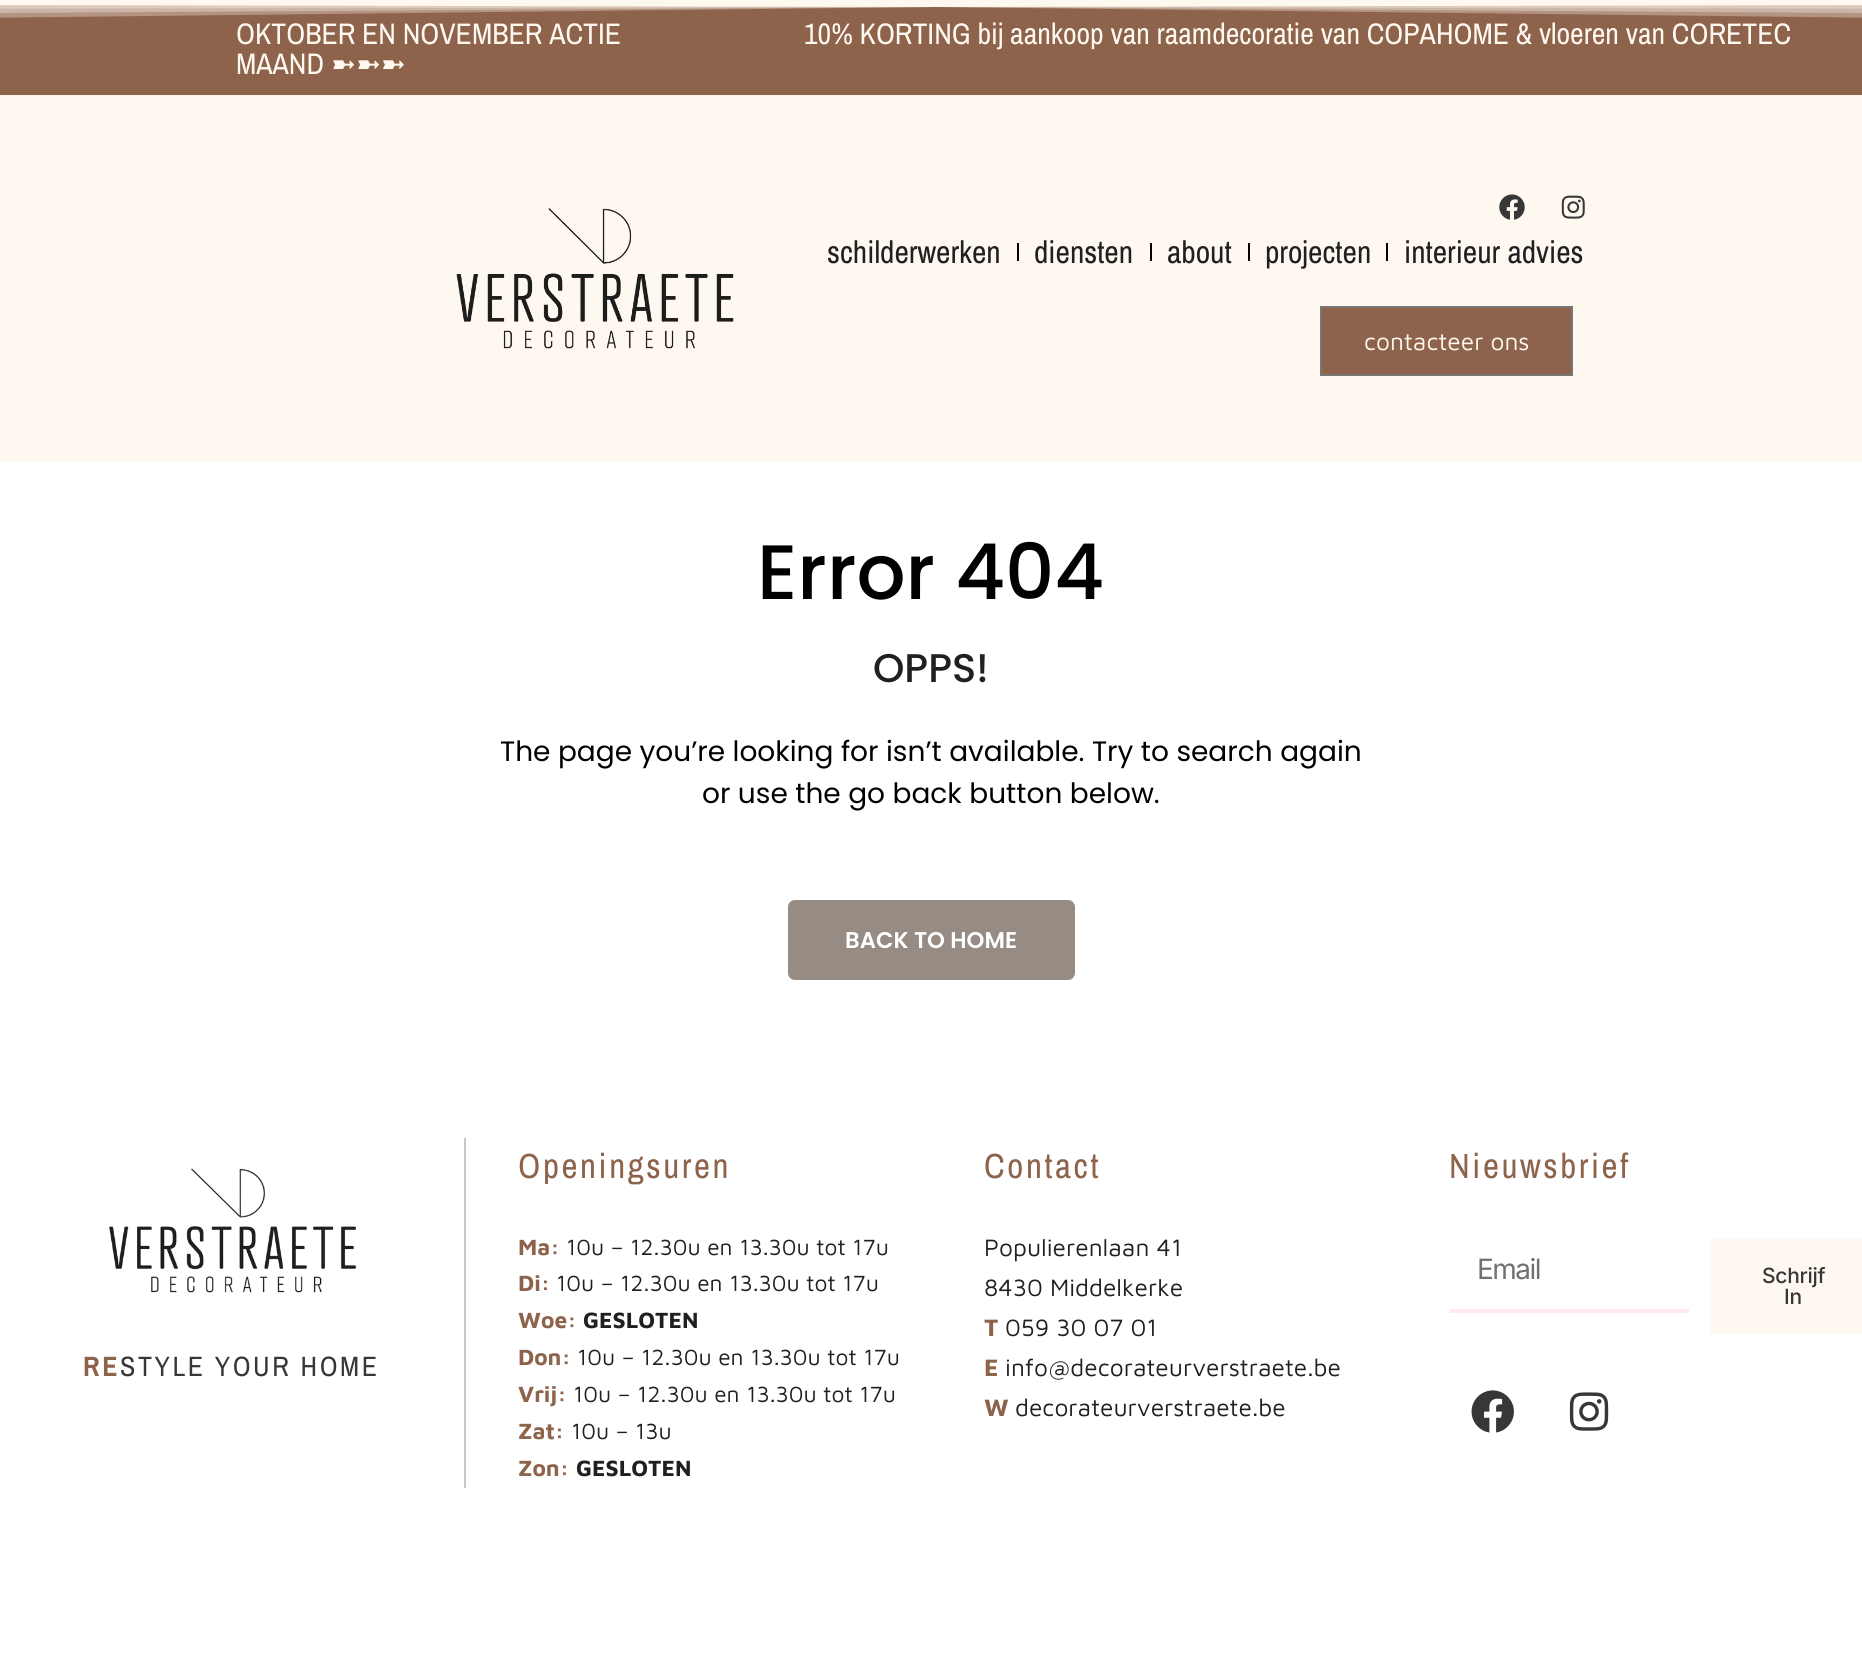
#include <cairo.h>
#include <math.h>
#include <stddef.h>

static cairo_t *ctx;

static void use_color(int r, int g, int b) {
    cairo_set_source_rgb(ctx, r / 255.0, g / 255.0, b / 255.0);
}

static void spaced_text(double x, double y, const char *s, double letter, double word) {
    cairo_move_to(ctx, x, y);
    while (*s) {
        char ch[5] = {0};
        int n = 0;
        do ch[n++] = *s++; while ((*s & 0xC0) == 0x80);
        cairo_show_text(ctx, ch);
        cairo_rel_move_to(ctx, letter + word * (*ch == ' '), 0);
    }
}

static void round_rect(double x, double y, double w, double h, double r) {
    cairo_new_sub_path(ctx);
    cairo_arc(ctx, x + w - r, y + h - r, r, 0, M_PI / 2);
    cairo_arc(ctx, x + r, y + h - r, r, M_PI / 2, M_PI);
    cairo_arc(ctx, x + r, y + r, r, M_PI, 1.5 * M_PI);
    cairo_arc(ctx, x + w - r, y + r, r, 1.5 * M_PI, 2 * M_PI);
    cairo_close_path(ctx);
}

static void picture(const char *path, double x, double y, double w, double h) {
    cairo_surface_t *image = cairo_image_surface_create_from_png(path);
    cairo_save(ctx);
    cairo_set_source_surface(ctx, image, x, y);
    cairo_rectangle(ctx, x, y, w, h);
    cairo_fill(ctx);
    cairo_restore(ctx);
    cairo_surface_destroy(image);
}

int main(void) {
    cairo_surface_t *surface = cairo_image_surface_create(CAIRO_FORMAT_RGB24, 1862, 1657);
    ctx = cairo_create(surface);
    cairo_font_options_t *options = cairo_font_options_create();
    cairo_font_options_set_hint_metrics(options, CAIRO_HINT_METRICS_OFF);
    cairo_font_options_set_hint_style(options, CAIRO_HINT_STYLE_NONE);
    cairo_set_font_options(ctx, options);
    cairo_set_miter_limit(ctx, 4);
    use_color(255, 255, 255);
    cairo_paint(ctx);
    use_color(141, 99, 75);
    cairo_rectangle(ctx, 0, 7, 1862, 88);
    cairo_fill(ctx);
    use_color(179, 148, 130);
    cairo_new_path(ctx);
    cairo_move_to(ctx, -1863, -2);
    cairo_line_to(ctx, -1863, 39);
    cairo_line_to(ctx, 932, 7);
    cairo_line_to(ctx, 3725, 39);
    cairo_line_to(ctx, 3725, -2);
    cairo_close_path(ctx);
    cairo_fill(ctx);
    cairo_set_source_rgba(ctx, 1, 0.973, 0.945, 0.33);
    cairo_new_path(ctx);
    cairo_move_to(ctx, -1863, -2);
    cairo_line_to(ctx, -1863, 25);
    cairo_line_to(ctx, 932, 7);
    cairo_line_to(ctx, 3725, 25);
    cairo_line_to(ctx, 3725, -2);
    cairo_close_path(ctx);
    cairo_fill(ctx);
    use_color(221, 203, 191);
    cairo_new_path(ctx);
    cairo_move_to(ctx, -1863, -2);
    cairo_line_to(ctx, -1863, 12);
    cairo_line_to(ctx, 932, 7);
    cairo_line_to(ctx, 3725, 12);
    cairo_line_to(ctx, 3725, -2);
    cairo_close_path(ctx);
    cairo_fill(ctx);
    use_color(255, 248, 241);
    cairo_new_path(ctx);
    cairo_move_to(ctx, -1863, -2);
    cairo_line_to(ctx, -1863, 1);
    cairo_line_to(ctx, 932, 7);
    cairo_line_to(ctx, 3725, 1);
    cairo_line_to(ctx, 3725, -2);
    cairo_close_path(ctx);
    cairo_fill(ctx);
    cairo_select_font_face(ctx, "Archivo Narrow", CAIRO_FONT_SLANT_NORMAL, CAIRO_FONT_WEIGHT_NORMAL);
    cairo_set_font_size(ctx, 29.75);
    cairo_move_to(ctx, 236, 44);
    cairo_show_text(ctx, "OKTOBER EN NOVEMBER ACTIE");
    cairo_move_to(ctx, 236, 74);
    cairo_show_text(ctx, "MAAND");
    cairo_select_font_face(ctx, "DejaVu Sans", CAIRO_FONT_SLANT_NORMAL, CAIRO_FONT_WEIGHT_NORMAL);
    cairo_move_to(ctx, 331, 74);
    cairo_show_text(ctx, "➼➼➼");
    cairo_select_font_face(ctx, "Archivo Narrow", CAIRO_FONT_SLANT_NORMAL, CAIRO_FONT_WEIGHT_NORMAL);
    cairo_move_to(ctx, 804, 44);
    cairo_show_text(ctx, "10% KORTING bij aankoop van raamdecoratie van COPAHOME & vloeren van CORETEC");
    cairo_rectangle(ctx, 0, 95, 1862, 367);
    cairo_fill(ctx);
    picture("img1.png", 456, 208, 278, 141);
    picture("img2.png", 1499, 194, 26, 26);
    picture("img3.png", 1561, 195, 24, 24);
    cairo_set_font_size(ctx, 31.5);
    use_color(32, 32, 32);
    cairo_move_to(ctx, 827, 263);
    cairo_show_text(ctx, "schilderwerken");
    use_color(0, 0, 0);
    cairo_rectangle(ctx, 1017, 243, 2, 18);
    cairo_fill(ctx);
    use_color(32, 32, 32);
    cairo_move_to(ctx, 1034, 263);
    cairo_show_text(ctx, "diensten");
    use_color(0, 0, 0);
    cairo_rectangle(ctx, 1150, 243, 2, 18);
    cairo_fill(ctx);
    use_color(32, 32, 32);
    cairo_move_to(ctx, 1167, 263);
    cairo_show_text(ctx, "about");
    use_color(0, 0, 0);
    cairo_rectangle(ctx, 1248, 243, 2, 18);
    cairo_fill(ctx);
    use_color(32, 32, 32);
    cairo_move_to(ctx, 1265, 263);
    cairo_show_text(ctx, "projecten");
    use_color(0, 0, 0);
    cairo_rectangle(ctx, 1386, 243, 2, 18);
    cairo_fill(ctx);
    use_color(32, 32, 32);
    cairo_move_to(ctx, 1404, 263);
    cairo_show_text(ctx, "interieur advies");
    use_color(141, 99, 75);
    cairo_rectangle(ctx, 1321, 307, 251, 68);
    cairo_fill_preserve(ctx);
    use_color(121, 119, 117);
    cairo_stroke(ctx);
    cairo_select_font_face(ctx, "Maven Pro", CAIRO_FONT_SLANT_NORMAL, CAIRO_FONT_WEIGHT_NORMAL);
    cairo_set_font_size(ctx, 24.5);
    use_color(255, 248, 241);
    cairo_move_to(ctx, 1364, 350);
    cairo_show_text(ctx, "contacteer ons");
    cairo_select_font_face(ctx, "Poppins Medium", CAIRO_FONT_SLANT_NORMAL, CAIRO_FONT_WEIGHT_NORMAL);
    cairo_set_font_size(ctx, 77);
    use_color(0, 0, 0);
    cairo_move_to(ctx, 757, 599);
    cairo_show_text(ctx, "Error 404");
    cairo_set_font_size(ctx, 40);
    use_color(32, 32, 32);
    cairo_move_to(ctx, 873, 682);
    cairo_show_text(ctx, "OPPS!");
    cairo_select_font_face(ctx, "Poppins", CAIRO_FONT_SLANT_NORMAL, CAIRO_FONT_WEIGHT_NORMAL);
    cairo_set_font_size(ctx, 28);
    use_color(0, 0, 0);
    cairo_move_to(ctx, 500, 761);
    cairo_show_text(ctx, "The page you’re looking for isn’t available. Try to search again");
    cairo_move_to(ctx, 702, 803);
    cairo_show_text(ctx, "or use the go back button below.");
    use_color(150, 140, 131);
    round_rect(788, 900, 287, 80, 7);
    cairo_fill(ctx);
    cairo_select_font_face(ctx, "Poppins SemiBold", CAIRO_FONT_SLANT_NORMAL, CAIRO_FONT_WEIGHT_NORMAL);
    cairo_set_font_size(ctx, 22.75);
    use_color(255, 255, 255);
    cairo_move_to(ctx, 845, 948);
    cairo_show_text(ctx, "BACK TO HOME");
    use_color(199, 199, 199);
    cairo_rectangle(ctx, 464, 1138, 2, 350);
    cairo_fill(ctx);
    picture("img4.png", 109, 1168, 247, 125);
    cairo_select_font_face(ctx, "Archivo Narrow", CAIRO_FONT_SLANT_NORMAL, CAIRO_FONT_WEIGHT_BOLD);
    cairo_set_font_size(ctx, 28);
    use_color(141, 99, 75);
    spaced_text(83, 1376, "RE", 2.6, 0);
    cairo_select_font_face(ctx, "Archivo Narrow", CAIRO_FONT_SLANT_NORMAL, CAIRO_FONT_WEIGHT_NORMAL);
    use_color(56, 55, 55);
    spaced_text(120, 1376, "STYLE YOUR HOME", 2.6, 0);
    cairo_set_font_size(ctx, 35);
    use_color(141, 99, 75);
    spaced_text(518, 1178, "Openingsuren", 2.6, 0);
    cairo_select_font_face(ctx, "Maven Pro", CAIRO_FONT_SLANT_NORMAL, CAIRO_FONT_WEIGHT_BOLD);
    cairo_set_font_size(ctx, 22.75);
    cairo_move_to(ctx, 518, 1255);
    cairo_show_text(ctx, "Ma:");
    cairo_select_font_face(ctx, "Maven Pro", CAIRO_FONT_SLANT_NORMAL, CAIRO_FONT_WEIGHT_NORMAL);
    use_color(32, 32, 32);
    cairo_move_to(ctx, 566, 1255);
    cairo_show_text(ctx, "10u – 12.30u en 13.30u tot 17u");
    cairo_select_font_face(ctx, "Maven Pro", CAIRO_FONT_SLANT_NORMAL, CAIRO_FONT_WEIGHT_BOLD);
    use_color(141, 99, 75);
    cairo_move_to(ctx, 518, 1291);
    cairo_show_text(ctx, "Di:");
    cairo_select_font_face(ctx, "Maven Pro", CAIRO_FONT_SLANT_NORMAL, CAIRO_FONT_WEIGHT_NORMAL);
    use_color(32, 32, 32);
    cairo_move_to(ctx, 556, 1291);
    cairo_show_text(ctx, "10u – 12.30u en 13.30u tot 17u");
    cairo_select_font_face(ctx, "Maven Pro", CAIRO_FONT_SLANT_NORMAL, CAIRO_FONT_WEIGHT_BOLD);
    use_color(141, 99, 75);
    cairo_move_to(ctx, 518, 1328);
    cairo_show_text(ctx, "Woe:");
    use_color(32, 32, 32);
    cairo_move_to(ctx, 583, 1328);
    cairo_show_text(ctx, "GESLOTEN");
    use_color(141, 99, 75);
    cairo_move_to(ctx, 518, 1365);
    cairo_show_text(ctx, "Don:");
    cairo_select_font_face(ctx, "Maven Pro", CAIRO_FONT_SLANT_NORMAL, CAIRO_FONT_WEIGHT_NORMAL);
    use_color(32, 32, 32);
    cairo_move_to(ctx, 577, 1365);
    cairo_show_text(ctx, "10u – 12.30u en 13.30u tot 17u");
    cairo_select_font_face(ctx, "Maven Pro", CAIRO_FONT_SLANT_NORMAL, CAIRO_FONT_WEIGHT_BOLD);
    use_color(141, 99, 75);
    cairo_move_to(ctx, 518, 1402);
    cairo_show_text(ctx, "Vrij:");
    cairo_select_font_face(ctx, "Maven Pro", CAIRO_FONT_SLANT_NORMAL, CAIRO_FONT_WEIGHT_NORMAL);
    use_color(32, 32, 32);
    cairo_move_to(ctx, 573, 1402);
    cairo_show_text(ctx, "10u – 12.30u en 13.30u tot 17u");
    cairo_select_font_face(ctx, "Maven Pro", CAIRO_FONT_SLANT_NORMAL, CAIRO_FONT_WEIGHT_BOLD);
    use_color(141, 99, 75);
    cairo_move_to(ctx, 518, 1439);
    cairo_show_text(ctx, "Zat:");
    cairo_select_font_face(ctx, "Maven Pro", CAIRO_FONT_SLANT_NORMAL, CAIRO_FONT_WEIGHT_NORMAL);
    use_color(32, 32, 32);
    cairo_move_to(ctx, 571, 1439);
    cairo_show_text(ctx, "10u – 13u");
    cairo_select_font_face(ctx, "Maven Pro", CAIRO_FONT_SLANT_NORMAL, CAIRO_FONT_WEIGHT_BOLD);
    use_color(141, 99, 75);
    cairo_move_to(ctx, 518, 1476);
    cairo_show_text(ctx, "Zon:");
    use_color(32, 32, 32);
    cairo_move_to(ctx, 576, 1476);
    cairo_show_text(ctx, "GESLOTEN");
    cairo_select_font_face(ctx, "Archivo Narrow", CAIRO_FONT_SLANT_NORMAL, CAIRO_FONT_WEIGHT_NORMAL);
    cairo_set_font_size(ctx, 35);
    use_color(141, 99, 75);
    spaced_text(984, 1178, "Contact", 2.6, 0);
    cairo_select_font_face(ctx, "Maven Pro", CAIRO_FONT_SLANT_NORMAL, CAIRO_FONT_WEIGHT_NORMAL);
    cairo_set_font_size(ctx, 24.5);
    use_color(32, 32, 32);
    cairo_move_to(ctx, 984, 1256);
    cairo_show_text(ctx, "Populierenlaan 41");
    cairo_move_to(ctx, 984, 1296);
    cairo_show_text(ctx, "8430 Middelkerke");
    cairo_select_font_face(ctx, "Maven Pro", CAIRO_FONT_SLANT_NORMAL, CAIRO_FONT_WEIGHT_BOLD);
    use_color(141, 99, 75);
    cairo_move_to(ctx, 984, 1336);
    cairo_show_text(ctx, "T");
    cairo_select_font_face(ctx, "Maven Pro", CAIRO_FONT_SLANT_NORMAL, CAIRO_FONT_WEIGHT_NORMAL);
    use_color(32, 32, 32);
    cairo_move_to(ctx, 1005, 1336);
    cairo_show_text(ctx, "059 30 07 01");
    cairo_select_font_face(ctx, "Maven Pro", CAIRO_FONT_SLANT_NORMAL, CAIRO_FONT_WEIGHT_BOLD);
    use_color(141, 99, 75);
    cairo_move_to(ctx, 984, 1376);
    cairo_show_text(ctx, "E");
    cairo_select_font_face(ctx, "Maven Pro", CAIRO_FONT_SLANT_NORMAL, CAIRO_FONT_WEIGHT_NORMAL);
    use_color(32, 32, 32);
    cairo_move_to(ctx, 1005, 1376);
    cairo_show_text(ctx, "info@decorateurverstraete.be");
    cairo_select_font_face(ctx, "Maven Pro", CAIRO_FONT_SLANT_NORMAL, CAIRO_FONT_WEIGHT_BOLD);
    use_color(141, 99, 75);
    cairo_move_to(ctx, 984, 1416);
    cairo_show_text(ctx, "W");
    cairo_select_font_face(ctx, "Maven Pro", CAIRO_FONT_SLANT_NORMAL, CAIRO_FONT_WEIGHT_NORMAL);
    use_color(32, 32, 32);
    cairo_move_to(ctx, 1015, 1416);
    cairo_show_text(ctx, "decorateurverstraete.be");
    cairo_select_font_face(ctx, "Archivo Narrow", CAIRO_FONT_SLANT_NORMAL, CAIRO_FONT_WEIGHT_NORMAL);
    cairo_set_font_size(ctx, 35);
    use_color(141, 99, 75);
    spaced_text(1449, 1178, "Nieuwsbrief", 2.6, 0);
    use_color(254, 235, 239);
    cairo_rectangle(ctx, 1449, 1309, 240, 4);
    cairo_fill(ctx);
    cairo_select_font_face(ctx, "Inter", CAIRO_FONT_SLANT_NORMAL, CAIRO_FONT_WEIGHT_NORMAL);
    cairo_set_font_size(ctx, 28);
    use_color(113, 113, 113);
    spaced_text(1477, 1279, "Email", -1.5, 0);
    use_color(255, 248, 241);
    cairo_rectangle(ctx, 1710, 1239, 152, 95);
    cairo_fill(ctx);
    cairo_select_font_face(ctx, "Inter Medium", CAIRO_FONT_SLANT_NORMAL, CAIRO_FONT_WEIGHT_NORMAL);
    cairo_set_font_size(ctx, 21);
    use_color(56, 55, 55);
    spaced_text(1762, 1283, "Schrijf", -0.25, 0);
    spaced_text(1784, 1304, "In", -0.25, 0);
    picture("img5.png", 1471, 1390, 43, 43);
    picture("img6.png", 1569, 1392, 40, 39);
    cairo_surface_write_to_png(surface, "result.png");
    cairo_font_options_destroy(options);
    cairo_destroy(ctx);
    cairo_surface_destroy(surface);
    return 0;
}
